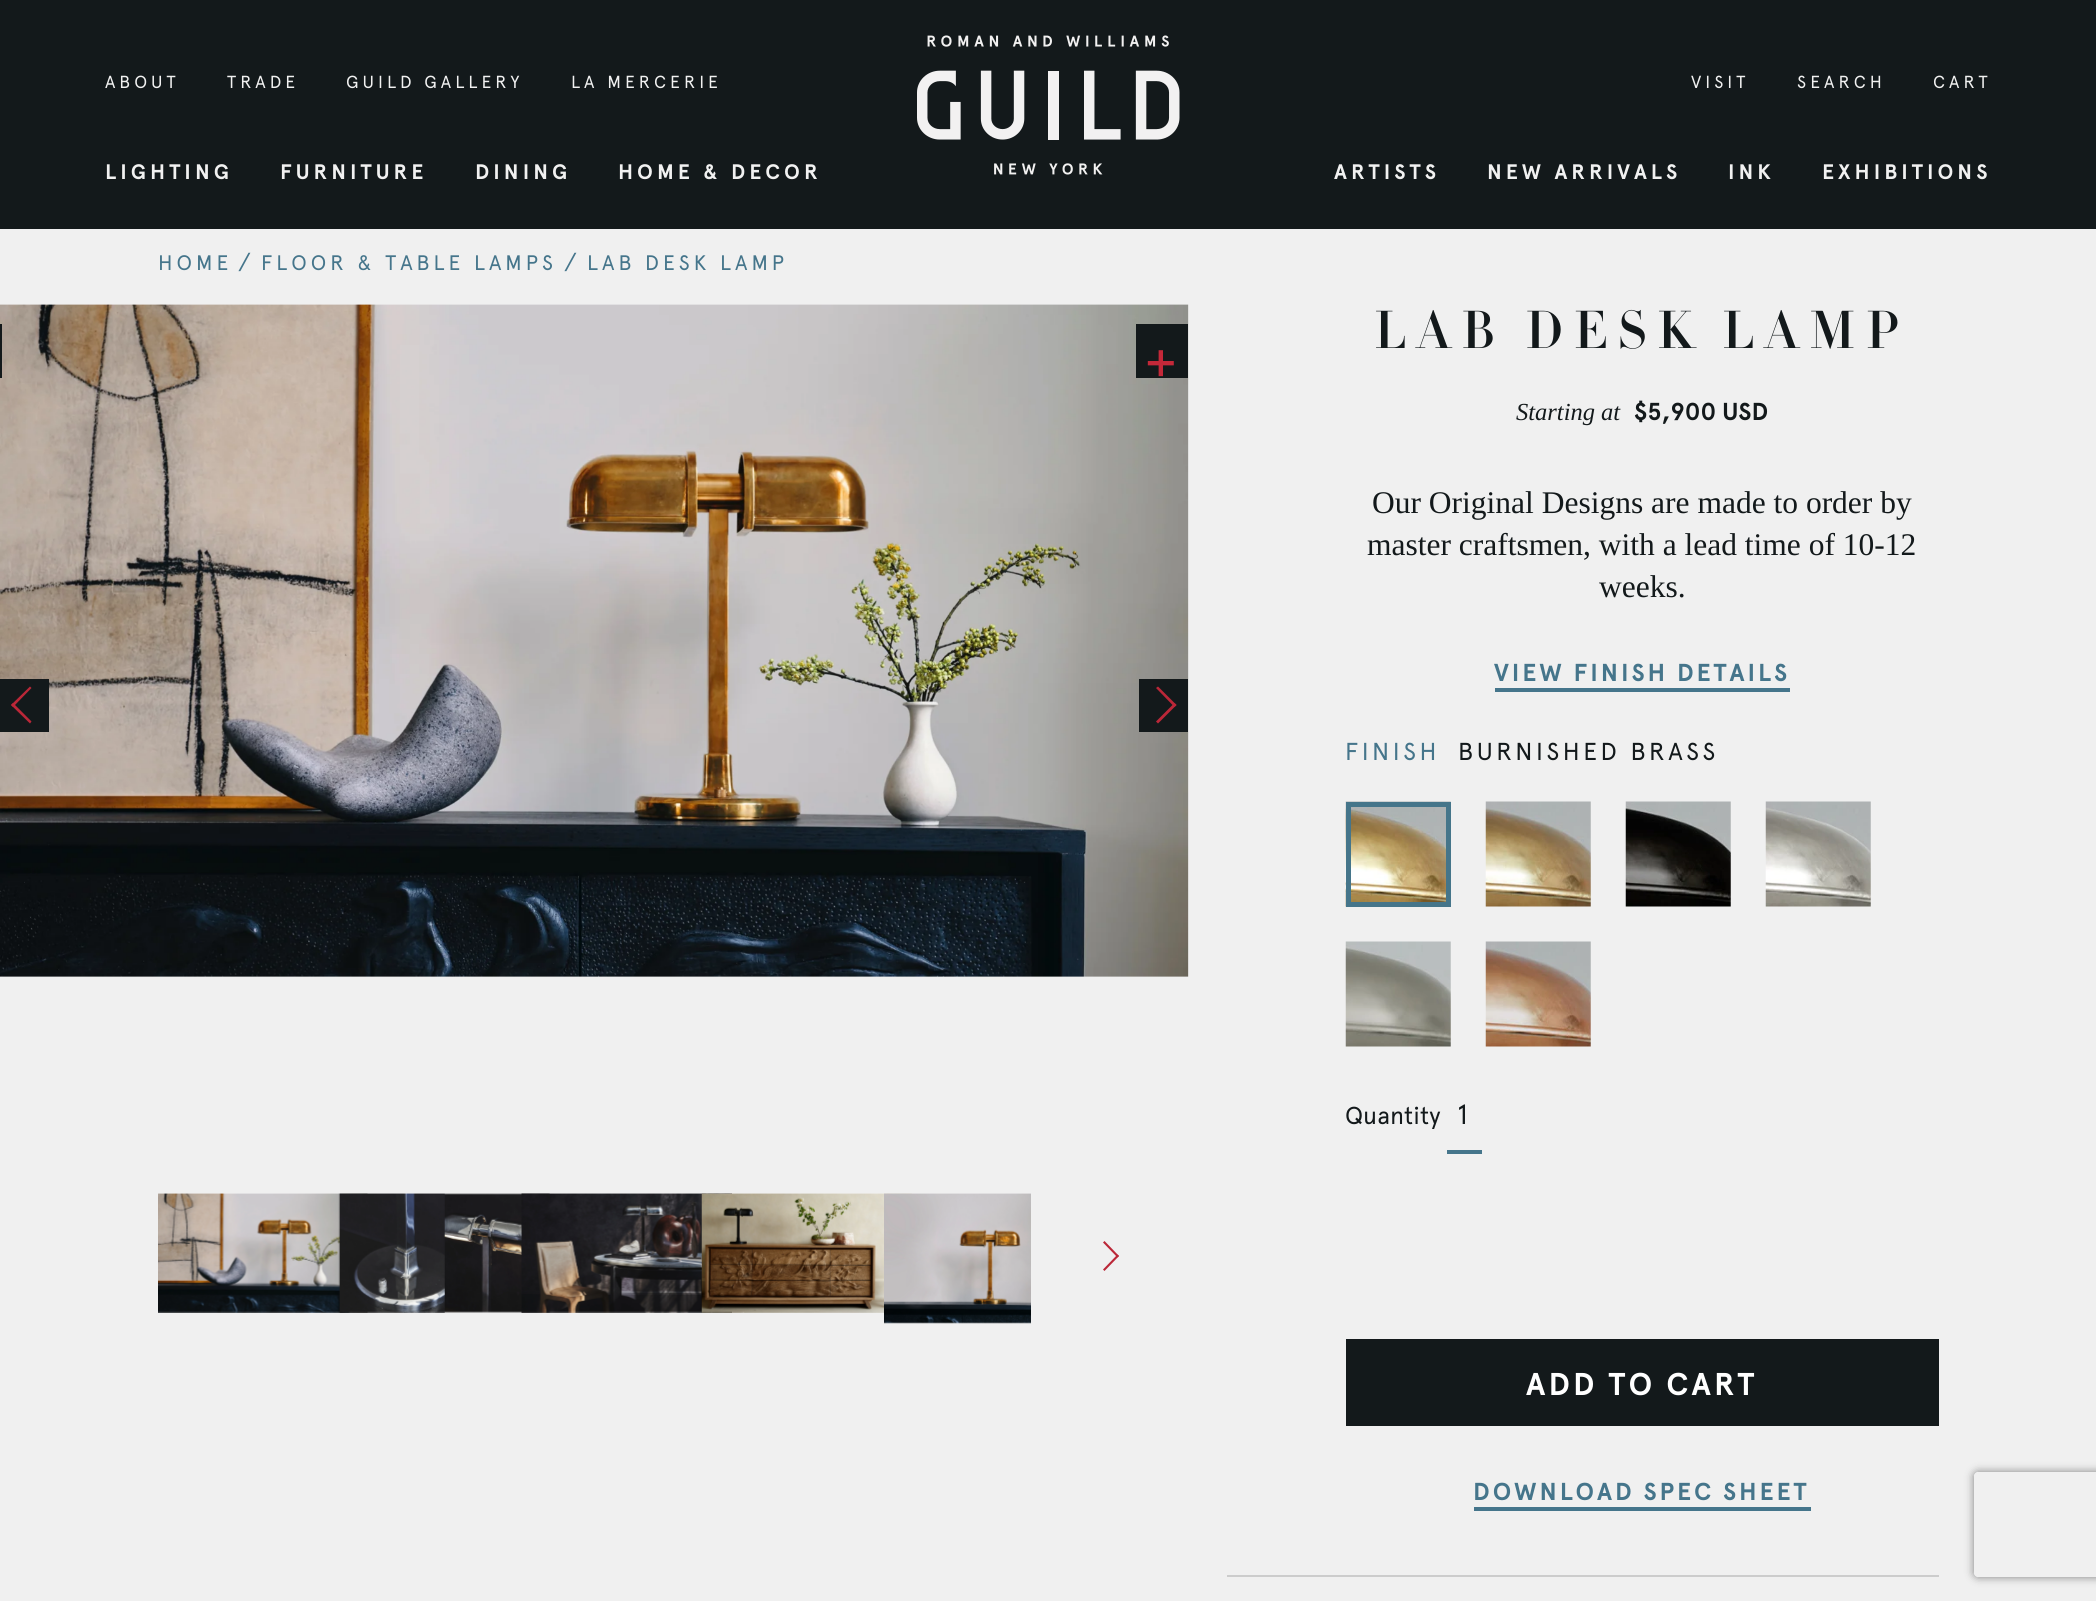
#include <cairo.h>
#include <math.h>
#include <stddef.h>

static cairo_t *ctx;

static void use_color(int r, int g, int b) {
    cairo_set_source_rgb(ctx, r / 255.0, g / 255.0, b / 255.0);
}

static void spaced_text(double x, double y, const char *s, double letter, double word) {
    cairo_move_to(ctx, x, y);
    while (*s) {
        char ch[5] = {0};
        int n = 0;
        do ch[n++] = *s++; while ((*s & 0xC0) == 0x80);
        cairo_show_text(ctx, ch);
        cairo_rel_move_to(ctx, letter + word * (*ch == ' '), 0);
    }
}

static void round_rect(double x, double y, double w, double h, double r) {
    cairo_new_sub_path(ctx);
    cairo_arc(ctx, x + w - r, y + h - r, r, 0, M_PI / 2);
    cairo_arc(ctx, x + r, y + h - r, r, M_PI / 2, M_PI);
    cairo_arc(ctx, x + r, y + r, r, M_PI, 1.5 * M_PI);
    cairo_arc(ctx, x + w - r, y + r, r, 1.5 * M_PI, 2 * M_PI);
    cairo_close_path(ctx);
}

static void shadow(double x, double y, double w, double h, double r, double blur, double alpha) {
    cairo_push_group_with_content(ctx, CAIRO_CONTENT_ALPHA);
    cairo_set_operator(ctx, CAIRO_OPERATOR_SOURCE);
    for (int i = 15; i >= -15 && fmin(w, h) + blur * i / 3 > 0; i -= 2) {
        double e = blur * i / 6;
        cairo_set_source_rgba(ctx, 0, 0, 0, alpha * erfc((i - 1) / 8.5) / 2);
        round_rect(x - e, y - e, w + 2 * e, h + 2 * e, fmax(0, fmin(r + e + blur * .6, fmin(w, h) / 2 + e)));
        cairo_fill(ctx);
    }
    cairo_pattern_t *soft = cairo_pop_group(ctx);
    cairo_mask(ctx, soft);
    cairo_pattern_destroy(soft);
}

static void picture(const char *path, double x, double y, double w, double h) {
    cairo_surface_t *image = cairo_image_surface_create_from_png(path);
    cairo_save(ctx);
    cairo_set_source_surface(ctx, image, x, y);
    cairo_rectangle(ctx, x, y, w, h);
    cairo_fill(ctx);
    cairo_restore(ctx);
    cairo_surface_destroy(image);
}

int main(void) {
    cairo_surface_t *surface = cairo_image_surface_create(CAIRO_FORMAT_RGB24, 2096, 1601);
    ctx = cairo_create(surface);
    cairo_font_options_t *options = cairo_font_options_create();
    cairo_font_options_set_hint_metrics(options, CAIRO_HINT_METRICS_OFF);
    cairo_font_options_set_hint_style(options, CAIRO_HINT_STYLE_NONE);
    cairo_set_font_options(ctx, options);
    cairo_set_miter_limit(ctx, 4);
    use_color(240, 240, 240);
    cairo_paint(ctx);
    use_color(19, 25, 27);
    cairo_rectangle(ctx, 0, 0, 2096, 229);
    cairo_fill(ctx);
    picture("img1.png", 917, 35, 263, 140);
    cairo_select_font_face(ctx, "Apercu", CAIRO_FONT_SLANT_NORMAL, CAIRO_FONT_WEIGHT_NORMAL);
    cairo_set_font_size(ctx, 17.5);
    use_color(241, 241, 241);
    spaced_text(105, 88, "ABOUT", 4, 0);
    spaced_text(227, 88, "TRADE", 4, 0);
    spaced_text(346, 88, "GUILD GALLERY", 4, 0);
    spaced_text(571, 88, "LA MERCERIE", 4, 0);
    spaced_text(1691, 88, "VISIT", 4, 0);
    spaced_text(1797, 88, "SEARCH", 4, 0);
    spaced_text(1933, 88, "CART", 4, 0);
    cairo_select_font_face(ctx, "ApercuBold", CAIRO_FONT_SLANT_NORMAL, CAIRO_FONT_WEIGHT_BOLD);
    cairo_set_font_size(ctx, 21);
    spaced_text(105, 179, "LIGHTING", 4, 0);
    spaced_text(280, 179, "FURNITURE", 4, 0);
    spaced_text(475, 179, "DINING", 4, 0);
    spaced_text(618, 179, "HOME & DECOR", 4, 0);
    spaced_text(1334, 179, "ARTISTS", 4, 0);
    spaced_text(1487, 179, "NEW ARRIVALS", 4, 0);
    spaced_text(1728, 179, "INK", 4, 0);
    spaced_text(1822, 179, "EXHIBITIONS", 4, 0);
    cairo_select_font_face(ctx, "Apercu", CAIRO_FONT_SLANT_NORMAL, CAIRO_FONT_WEIGHT_NORMAL);
    use_color(69, 117, 139);
    spaced_text(158, 270, "HOME", 4, 0);
    cairo_set_font_size(ctx, 23);
    cairo_move_to(ctx, 238, 270);
    cairo_show_text(ctx, "/");
    cairo_set_font_size(ctx, 21);
    spaced_text(261, 270, "FLOOR & TABLE LAMPS", 4, 0);
    cairo_set_font_size(ctx, 23);
    cairo_move_to(ctx, 564, 270);
    cairo_show_text(ctx, "/");
    cairo_set_font_size(ctx, 21);
    spaced_text(587, 270, "LAB DESK LAMP", 4, 0);
    picture("img2.png", 0, 304, 1189, 673);
    use_color(19, 25, 27);
    cairo_rectangle(ctx, 0, 324, 2, 54);
    cairo_fill(ctx);
    cairo_rectangle(ctx, 1136, 324, 52, 54);
    cairo_fill(ctx);
    cairo_set_font_size(ctx, 59);
    use_color(196, 40, 57);
    cairo_move_to(ctx, 1144, 382);
    cairo_show_text(ctx, "+");
    use_color(19, 25, 27);
    cairo_rectangle(ctx, 0, 679, 49, 53);
    cairo_fill(ctx);
    use_color(187, 39, 56);
    cairo_new_path(ctx);
    cairo_move_to(ctx, 13, 703);
    cairo_line_to(ctx, 31.5, 721.5);
    cairo_line_to(ctx, 30, 723.5);
    cairo_line_to(ctx, 11, 705);
    cairo_close_path(ctx);
    cairo_fill(ctx);
    cairo_new_path(ctx);
    cairo_move_to(ctx, 30, 686.5);
    cairo_line_to(ctx, 31.5, 688);
    cairo_line_to(ctx, 13, 707);
    cairo_line_to(ctx, 11, 705);
    cairo_close_path(ctx);
    cairo_fill(ctx);
    use_color(19, 25, 27);
    cairo_rectangle(ctx, 1139, 679, 49, 53);
    cairo_fill(ctx);
    use_color(187, 39, 56);
    cairo_new_path(ctx);
    cairo_move_to(ctx, 1158, 686.5);
    cairo_line_to(ctx, 1176.5, 705);
    cairo_line_to(ctx, 1174.5, 707);
    cairo_line_to(ctx, 1156, 688);
    cairo_close_path(ctx);
    cairo_fill(ctx);
    cairo_new_path(ctx);
    cairo_move_to(ctx, 1174.5, 703);
    cairo_line_to(ctx, 1176.5, 705);
    cairo_line_to(ctx, 1158, 723.5);
    cairo_line_to(ctx, 1156, 721.5);
    cairo_close_path(ctx);
    cairo_fill(ctx);
    picture("img3.png", 158, 1193, 210, 120);
    picture("img4.png", 338, 1193, 212, 120);
    picture("img5.png", 521, 1193, 211, 120);
    picture("img6.png", 701, 1193, 211, 120);
    picture("img7.png", 884, 1193, 147, 131);
    cairo_new_path(ctx);
    cairo_move_to(ctx, 1104.5, 1241);
    cairo_line_to(ctx, 1119, 1256);
    cairo_line_to(ctx, 1117.5, 1257.5);
    cairo_line_to(ctx, 1103, 1242.5);
    cairo_close_path(ctx);
    cairo_fill(ctx);
    cairo_new_path(ctx);
    cairo_move_to(ctx, 1117.5, 1254.5);
    cairo_line_to(ctx, 1119, 1256);
    cairo_line_to(ctx, 1104.5, 1271);
    cairo_line_to(ctx, 1103, 1269.5);
    cairo_close_path(ctx);
    cairo_fill(ctx);
    cairo_select_font_face(ctx, "Didot Medium", CAIRO_FONT_SLANT_NORMAL, CAIRO_FONT_WEIGHT_NORMAL);
    cairo_set_font_size(ctx, 52.5);
    use_color(19, 25, 27);
    spaced_text(1374, 348, "LAB DESK LAMP", 10.5, 0);
    cairo_select_font_face(ctx, "Liberation Serif", CAIRO_FONT_SLANT_ITALIC, CAIRO_FONT_WEIGHT_NORMAL);
    cairo_set_font_size(ctx, 24.5);
    cairo_move_to(ctx, 1516, 420);
    cairo_show_text(ctx, "Starting at");
    cairo_select_font_face(ctx, "ApercuBold", CAIRO_FONT_SLANT_NORMAL, CAIRO_FONT_WEIGHT_BOLD);
    cairo_move_to(ctx, 1634, 420);
    cairo_show_text(ctx, "$5,900 USD");
    cairo_select_font_face(ctx, "Liberation Serif", CAIRO_FONT_SLANT_NORMAL, CAIRO_FONT_WEIGHT_NORMAL);
    cairo_set_font_size(ctx, 31.5);
    cairo_move_to(ctx, 1372, 513);
    cairo_show_text(ctx, "Our Original Designs are made to order by");
    cairo_move_to(ctx, 1367, 555);
    cairo_show_text(ctx, "master craftsmen, with a lead time of 10-12");
    cairo_move_to(ctx, 1599, 597);
    cairo_show_text(ctx, "weeks.");
    cairo_select_font_face(ctx, "ApercuBold", CAIRO_FONT_SLANT_NORMAL, CAIRO_FONT_WEIGHT_BOLD);
    cairo_set_font_size(ctx, 24.5);
    use_color(69, 117, 139);
    spaced_text(1494, 681, "VIEW FINISH DETAILS", 2.9, 0);
    cairo_rectangle(ctx, 1495, 688, 295, 4);
    cairo_fill(ctx);
    cairo_select_font_face(ctx, "Apercu", CAIRO_FONT_SLANT_NORMAL, CAIRO_FONT_WEIGHT_NORMAL);
    spaced_text(1345, 760, "FINISH", 3.5, 0);
    use_color(19, 25, 27);
    spaced_text(1458, 760, "BURNISHED BRASS", 3.5, 0);
    picture("img8.png", 1345, 801, 106, 106);
    cairo_rectangle(ctx, 1348.5, 804.5, 100, 100);
    use_color(69, 117, 138);
    cairo_set_line_width(ctx, 5);
    cairo_stroke(ctx);
    picture("img9.png", 1485, 801, 106, 106);
    picture("img10.png", 1625, 801, 106, 106);
    picture("img11.png", 1765, 801, 106, 106);
    picture("img12.png", 1345, 941, 106, 106);
    picture("img13.png", 1485, 941, 106, 106);
    use_color(19, 25, 27);
    cairo_move_to(ctx, 1345, 1124);
    cairo_show_text(ctx, "Quantity");
    use_color(69, 117, 139);
    cairo_rectangle(ctx, 1447, 1150, 35, 4);
    cairo_fill(ctx);
    cairo_set_font_size(ctx, 28);
    use_color(19, 25, 27);
    spaced_text(1457, 1124, "1", 4, 0);
    cairo_rectangle(ctx, 1346, 1339, 593, 87);
    cairo_fill(ctx);
    cairo_select_font_face(ctx, "ApercuBold", CAIRO_FONT_SLANT_NORMAL, CAIRO_FONT_WEIGHT_BOLD);
    cairo_set_font_size(ctx, 31.5);
    use_color(255, 255, 255);
    spaced_text(1526, 1395, "ADD TO CART", 3.1, 0);
    cairo_set_font_size(ctx, 24.5);
    use_color(69, 117, 139);
    spaced_text(1473, 1500, "DOWNLOAD SPEC SHEET", 2.9, 0);
    cairo_rectangle(ctx, 1474, 1507, 337, 4);
    cairo_fill(ctx);
    use_color(204, 204, 204);
    cairo_rectangle(ctx, 1227, 1575, 712, 2);
    cairo_fill(ctx);
    cairo_save(ctx);
    cairo_set_fill_rule(ctx, CAIRO_FILL_RULE_EVEN_ODD);
    cairo_new_path(ctx);
    cairo_move_to(ctx, 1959, 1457);
    cairo_line_to(ctx, 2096, 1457);
    cairo_line_to(ctx, 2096, 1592);
    cairo_line_to(ctx, 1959, 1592);
    cairo_close_path(ctx);
    cairo_move_to(ctx, 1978, 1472);
    cairo_line_to(ctx, 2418, 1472);
    cairo_curve_to(ctx, 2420, 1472, 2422, 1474, 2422, 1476);
    cairo_line_to(ctx, 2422, 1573);
    cairo_curve_to(ctx, 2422, 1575, 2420, 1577, 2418, 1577);
    cairo_line_to(ctx, 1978, 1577);
    cairo_curve_to(ctx, 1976, 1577, 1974, 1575, 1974, 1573);
    cairo_line_to(ctx, 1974, 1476);
    cairo_curve_to(ctx, 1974, 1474, 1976, 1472, 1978, 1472);
    cairo_close_path(ctx);
    cairo_clip(ctx);
    use_color(128, 128, 128);
    shadow(1974, 1472, 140, 105, 4, 4.5, 1);
    cairo_restore(ctx);
    cairo_surface_write_to_png(surface, "result.png");
    cairo_font_options_destroy(options);
    cairo_destroy(ctx);
    cairo_surface_destroy(surface);
    return 0;
}
